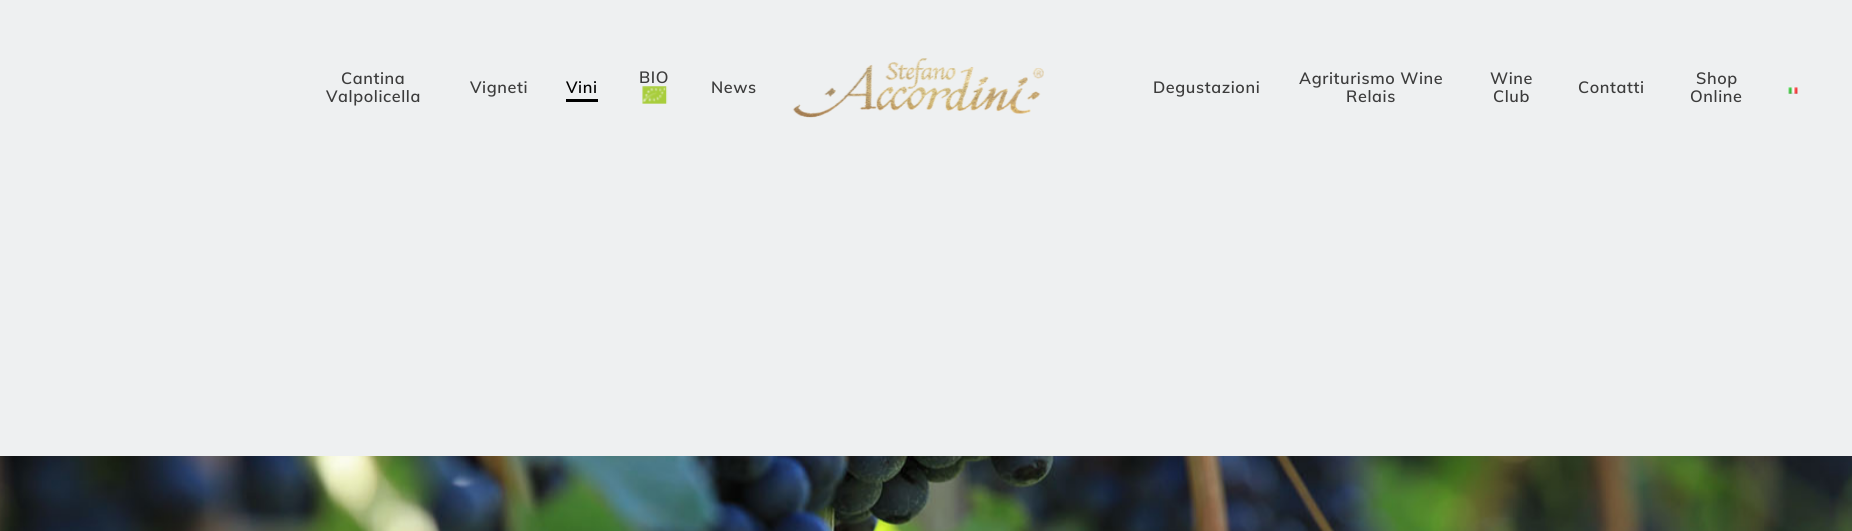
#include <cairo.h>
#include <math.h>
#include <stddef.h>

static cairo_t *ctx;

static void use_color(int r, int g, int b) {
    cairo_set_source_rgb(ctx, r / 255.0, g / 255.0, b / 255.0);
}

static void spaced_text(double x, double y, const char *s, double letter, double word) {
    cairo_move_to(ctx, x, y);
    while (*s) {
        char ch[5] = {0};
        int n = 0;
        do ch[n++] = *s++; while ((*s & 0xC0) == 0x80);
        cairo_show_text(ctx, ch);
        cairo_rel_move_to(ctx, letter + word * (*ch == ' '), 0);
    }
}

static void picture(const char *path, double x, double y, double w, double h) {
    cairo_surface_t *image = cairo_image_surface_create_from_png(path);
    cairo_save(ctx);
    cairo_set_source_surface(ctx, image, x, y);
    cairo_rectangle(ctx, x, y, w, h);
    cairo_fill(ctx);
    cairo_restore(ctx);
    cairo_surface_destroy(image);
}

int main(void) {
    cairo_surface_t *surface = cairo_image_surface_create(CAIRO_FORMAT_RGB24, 1852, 531);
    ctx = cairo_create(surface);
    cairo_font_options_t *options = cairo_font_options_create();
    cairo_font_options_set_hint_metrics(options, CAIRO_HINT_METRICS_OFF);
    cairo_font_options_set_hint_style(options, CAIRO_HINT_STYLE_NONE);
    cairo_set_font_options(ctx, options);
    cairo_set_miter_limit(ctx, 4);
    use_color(255, 255, 255);
    cairo_paint(ctx);
    use_color(238, 240, 241);
    cairo_rectangle(ctx, 0, 0, 1852, 456);
    cairo_fill(ctx);
    picture("img1.png", 0, 456, 1852, 75);
    picture("img2.png", 792, 58, 252, 60);
    cairo_select_font_face(ctx, "Muli SemiBold", CAIRO_FONT_SLANT_NORMAL, CAIRO_FONT_WEIGHT_NORMAL);
    cairo_set_font_size(ctx, 16.25);
    use_color(60, 60, 60);
    spaced_text(341, 84, "Cantina", 0.6, 0);
    spaced_text(326, 102, "Valpolicella", 0.6, 0);
    spaced_text(470, 93, "Vigneti", 0.6, 0);
    use_color(0, 0, 0);
    spaced_text(566, 93, "Vini", 0.6, 0);
    cairo_rectangle(ctx, 566, 99, 32, 3);
    cairo_fill(ctx);
    use_color(60, 60, 60);
    spaced_text(639, 83, "BIO", 0.6, 0);
    picture("img3.png", 642, 86, 26, 18);
    spaced_text(711, 93, "News", 0.6, 0);
    spaced_text(1153, 93, "Degustazioni", 0.6, 0);
    spaced_text(1299, 84, "Agriturismo Wine", 0.6, 0);
    spaced_text(1346, 102, "Relais", 0.6, 0);
    spaced_text(1490, 84, "Wine", 0.6, 0);
    spaced_text(1493, 102, "Club", 0.6, 0);
    spaced_text(1578, 93, "Contatti", 0.6, 0);
    spaced_text(1696, 84, "Shop", 0.6, 0);
    spaced_text(1690, 102, "Online", 0.6, 0);
    picture("img4.png", 1788, 87, 10, 7);
    cairo_surface_write_to_png(surface, "result.png");
    cairo_font_options_destroy(options);
    cairo_destroy(ctx);
    cairo_surface_destroy(surface);
    return 0;
}
